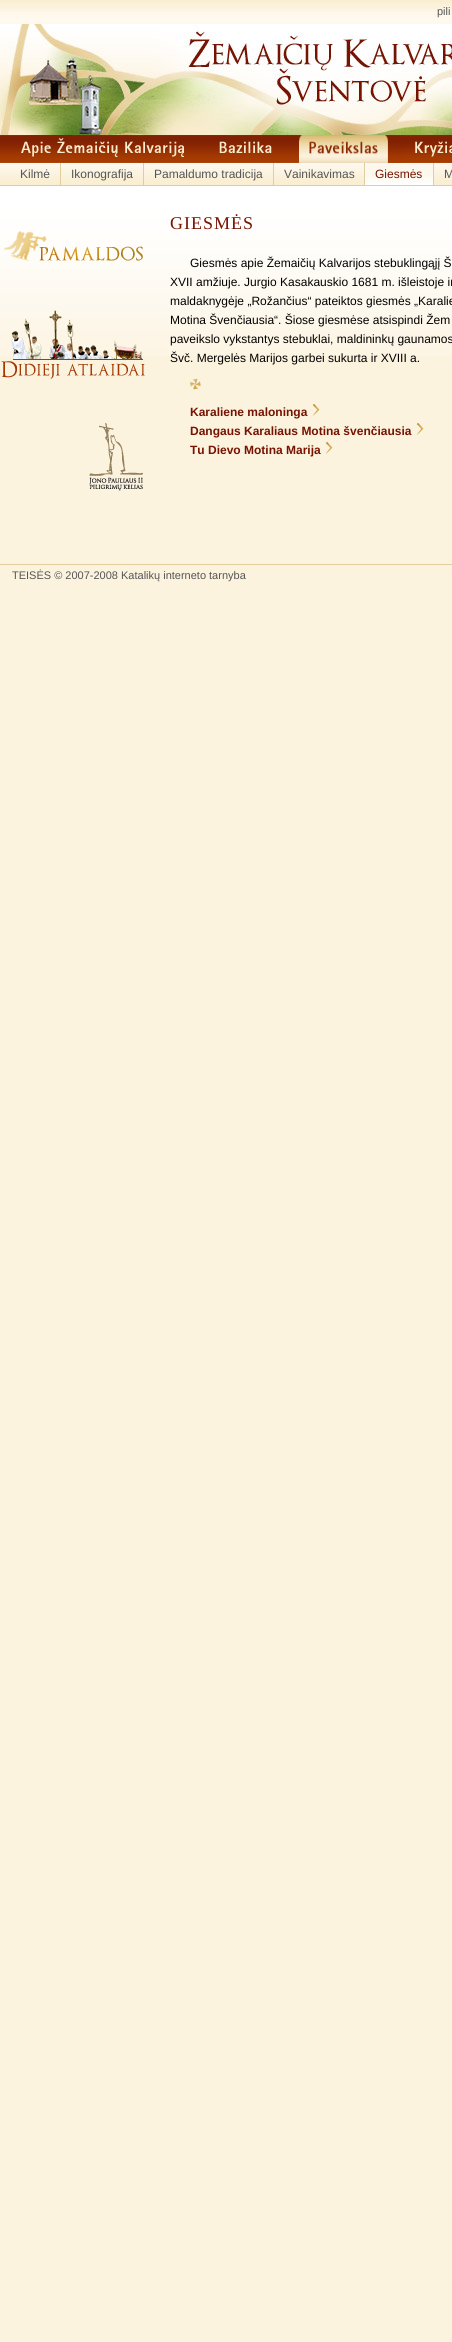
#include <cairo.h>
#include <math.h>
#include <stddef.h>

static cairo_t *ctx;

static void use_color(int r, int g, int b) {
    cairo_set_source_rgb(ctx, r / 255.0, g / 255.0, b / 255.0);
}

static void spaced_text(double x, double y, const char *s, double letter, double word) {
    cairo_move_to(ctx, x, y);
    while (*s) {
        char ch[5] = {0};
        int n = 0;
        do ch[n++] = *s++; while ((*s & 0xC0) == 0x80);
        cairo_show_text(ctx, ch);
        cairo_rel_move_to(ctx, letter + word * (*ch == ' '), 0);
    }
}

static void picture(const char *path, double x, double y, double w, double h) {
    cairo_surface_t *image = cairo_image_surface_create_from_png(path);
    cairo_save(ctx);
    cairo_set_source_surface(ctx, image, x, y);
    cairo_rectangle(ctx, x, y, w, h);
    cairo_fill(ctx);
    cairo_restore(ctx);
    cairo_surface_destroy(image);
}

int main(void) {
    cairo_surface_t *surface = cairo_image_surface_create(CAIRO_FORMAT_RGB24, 452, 2342);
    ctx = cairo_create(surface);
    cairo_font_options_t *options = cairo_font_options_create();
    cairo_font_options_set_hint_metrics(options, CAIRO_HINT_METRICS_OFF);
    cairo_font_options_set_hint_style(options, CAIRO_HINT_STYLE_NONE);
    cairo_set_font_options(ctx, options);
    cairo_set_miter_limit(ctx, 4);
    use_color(252, 243, 223);
    cairo_paint(ctx);
    picture("img1.png", 0, 0, 452, 356);
    cairo_select_font_face(ctx, "Liberation Sans", CAIRO_FONT_SLANT_NORMAL, CAIRO_FONT_WEIGHT_NORMAL);
    cairo_set_font_size(ctx, 11);
    use_color(85, 85, 85);
    cairo_move_to(ctx, 437, 15);
    cairo_show_text(ctx, "pili");
    picture("img2.png", 0, 24, 452, 111);
    picture("img3.png", 21, 135, 188, 22);
    picture("img4.png", 209, 135, 90, 18);
    picture("img5.png", 411, 135, 41, 22);
    picture("img6.png", 299, 135, 106, 1);
    picture("img7.png", 299, 136, 106, 27);
    picture("img8.png", 0, 163, 452, 22);
    use_color(225, 206, 159);
    cairo_rectangle(ctx, 0, 185, 452, 1);
    cairo_fill(ctx);
    cairo_rectangle(ctx, 60, 163, 1, 22);
    cairo_fill(ctx);
    cairo_set_font_size(ctx, 12);
    use_color(85, 85, 85);
    cairo_move_to(ctx, 20, 178);
    cairo_show_text(ctx, "Kilmė");
    use_color(225, 206, 159);
    cairo_rectangle(ctx, 143, 163, 1, 22);
    cairo_fill(ctx);
    use_color(85, 85, 85);
    cairo_move_to(ctx, 71, 178);
    cairo_show_text(ctx, "Ikonografija");
    use_color(225, 206, 159);
    cairo_rectangle(ctx, 273, 163, 1, 22);
    cairo_fill(ctx);
    use_color(85, 85, 85);
    cairo_move_to(ctx, 154, 178);
    cairo_show_text(ctx, "Pamaldumo tradicija");
    use_color(225, 206, 159);
    cairo_rectangle(ctx, 364, 163, 1, 22);
    cairo_fill(ctx);
    use_color(85, 85, 85);
    cairo_move_to(ctx, 284, 178);
    cairo_show_text(ctx, "Vainikavimas");
    use_color(255, 255, 255);
    cairo_rectangle(ctx, 365, 183, 68, 2);
    cairo_fill(ctx);
    picture("img9.png", 365, 163, 68, 20);
    use_color(225, 206, 159);
    cairo_rectangle(ctx, 433, 163, 1, 22);
    cairo_fill(ctx);
    use_color(118, 19, 1);
    cairo_move_to(ctx, 375, 178);
    cairo_show_text(ctx, "Giesmės");
    use_color(85, 85, 85);
    cairo_move_to(ctx, 444, 178);
    cairo_show_text(ctx, "M");
    picture("img10.png", 4, 231, 139, 30);
    picture("img11.png", 1, 310, 144, 69);
    picture("img12.png", 89, 423, 54, 68);
    cairo_select_font_face(ctx, "Liberation Serif", CAIRO_FONT_SLANT_NORMAL, CAIRO_FONT_WEIGHT_NORMAL);
    cairo_set_font_size(ctx, 18);
    use_color(118, 19, 1);
    spaced_text(170, 229, "GIESMĖS", 1, 0);
    cairo_select_font_face(ctx, "Liberation Sans", CAIRO_FONT_SLANT_NORMAL, CAIRO_FONT_WEIGHT_NORMAL);
    cairo_set_font_size(ctx, 12);
    use_color(0, 0, 0);
    cairo_move_to(ctx, 190, 267);
    cairo_show_text(ctx, "Giesmės apie Žemaičių Kalvarijos stebuklingąjį Š");
    cairo_move_to(ctx, 170, 286);
    cairo_show_text(ctx, "XVII amžiuje. Jurgio Kasakauskio 1681 m. išleistoje ir");
    cairo_move_to(ctx, 170, 305);
    cairo_show_text(ctx, "maldaknygėje „Rožančius“ pateiktos giesmės „Karalie");
    cairo_move_to(ctx, 170, 324);
    cairo_show_text(ctx, "Motina Švenčiausia“. Šiose giesmėse atsispindi Žem");
    cairo_move_to(ctx, 170, 343);
    cairo_show_text(ctx, "paveikslo vykstantys stebuklai, maldininkų gaunamos");
    cairo_move_to(ctx, 170, 362);
    cairo_show_text(ctx, "Švč. Mergelės Marijos garbei sukurta ir XVIII a.");
    picture("img13.png", 190, 378, 11, 12);
    cairo_select_font_face(ctx, "Liberation Sans", CAIRO_FONT_SLANT_NORMAL, CAIRO_FONT_WEIGHT_BOLD);
    use_color(118, 19, 1);
    cairo_move_to(ctx, 190, 416);
    cairo_show_text(ctx, "Karaliene maloninga");
    picture("img14.png", 312, 404, 8, 12);
    cairo_move_to(ctx, 190, 435);
    cairo_show_text(ctx, "Dangaus Karaliaus Motina švenčiausia");
    picture("img14.png", 416, 423, 8, 12);
    cairo_move_to(ctx, 190, 454);
    cairo_show_text(ctx, "Tu Dievo Motina Marija");
    picture("img14.png", 325, 442, 8, 12);
    use_color(225, 206, 159);
    cairo_rectangle(ctx, 0, 564, 452, 1);
    cairo_fill(ctx);
    cairo_select_font_face(ctx, "Liberation Sans", CAIRO_FONT_SLANT_NORMAL, CAIRO_FONT_WEIGHT_NORMAL);
    cairo_set_font_size(ctx, 11);
    use_color(85, 85, 85);
    cairo_move_to(ctx, 12, 579);
    cairo_show_text(ctx, "TEISĖS © 2007-2008 Katalikų interneto tarnyba");
    cairo_surface_write_to_png(surface, "result.png");
    cairo_font_options_destroy(options);
    cairo_destroy(ctx);
    cairo_surface_destroy(surface);
    return 0;
}
